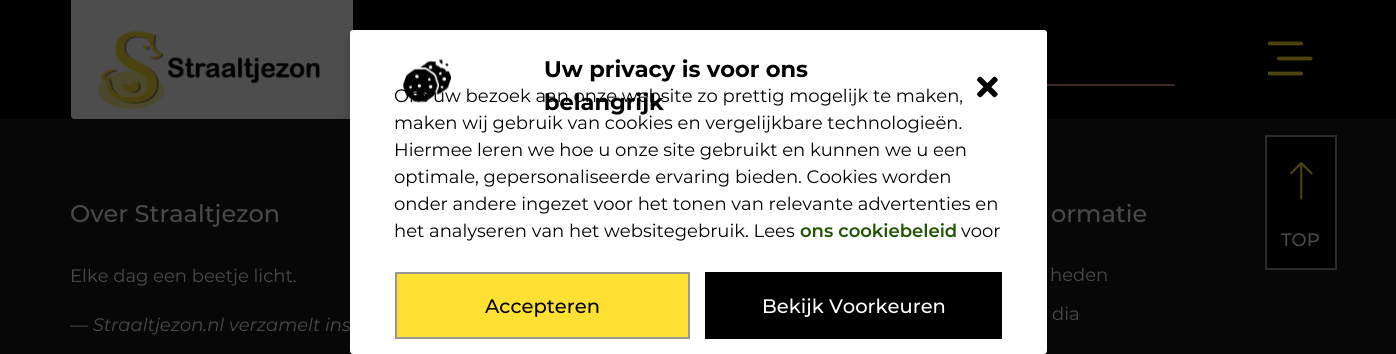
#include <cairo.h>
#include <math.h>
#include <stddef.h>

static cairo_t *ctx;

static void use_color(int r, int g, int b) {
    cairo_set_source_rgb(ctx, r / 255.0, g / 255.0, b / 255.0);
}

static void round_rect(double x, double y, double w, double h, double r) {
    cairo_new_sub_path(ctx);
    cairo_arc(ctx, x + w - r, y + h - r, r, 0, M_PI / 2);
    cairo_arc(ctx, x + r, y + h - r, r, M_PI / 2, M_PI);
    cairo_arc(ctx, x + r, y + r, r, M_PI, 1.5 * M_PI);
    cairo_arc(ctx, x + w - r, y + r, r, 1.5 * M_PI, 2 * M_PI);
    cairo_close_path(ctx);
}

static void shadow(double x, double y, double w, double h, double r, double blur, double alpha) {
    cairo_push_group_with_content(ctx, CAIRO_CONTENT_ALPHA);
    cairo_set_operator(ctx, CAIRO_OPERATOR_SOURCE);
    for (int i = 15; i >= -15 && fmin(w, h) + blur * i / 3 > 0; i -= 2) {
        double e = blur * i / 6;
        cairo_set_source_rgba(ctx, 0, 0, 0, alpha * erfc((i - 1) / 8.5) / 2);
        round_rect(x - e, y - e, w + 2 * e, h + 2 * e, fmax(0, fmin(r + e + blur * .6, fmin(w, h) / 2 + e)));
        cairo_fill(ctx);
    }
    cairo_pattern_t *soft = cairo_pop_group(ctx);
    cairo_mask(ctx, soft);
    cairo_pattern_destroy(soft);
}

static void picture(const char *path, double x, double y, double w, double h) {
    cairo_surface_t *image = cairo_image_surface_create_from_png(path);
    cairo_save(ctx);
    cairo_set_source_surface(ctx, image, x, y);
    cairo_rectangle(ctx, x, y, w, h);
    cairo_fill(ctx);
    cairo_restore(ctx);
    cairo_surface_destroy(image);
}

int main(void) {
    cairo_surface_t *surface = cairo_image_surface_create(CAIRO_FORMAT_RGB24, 1396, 354);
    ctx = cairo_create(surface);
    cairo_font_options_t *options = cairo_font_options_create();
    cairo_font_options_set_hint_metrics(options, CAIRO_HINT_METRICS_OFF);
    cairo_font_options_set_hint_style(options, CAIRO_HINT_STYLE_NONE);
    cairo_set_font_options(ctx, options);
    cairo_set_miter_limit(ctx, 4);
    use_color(7, 7, 7);
    cairo_paint(ctx);
    use_color(0, 0, 0);
    cairo_rectangle(ctx, 0, 0, 1396, 119);
    cairo_fill(ctx);
    use_color(77, 77, 77);
    cairo_new_path(ctx);
    cairo_move_to(ctx, 71, 0);
    cairo_line_to(ctx, 353, 0);
    cairo_line_to(ctx, 353, 116);
    cairo_curve_to(ctx, 353, 117.5, 351.5, 119, 350, 119);
    cairo_line_to(ctx, 74, 119);
    cairo_curve_to(ctx, 72.5, 119, 71, 117.5, 71, 116);
    cairo_close_path(ctx);
    cairo_fill(ctx);
    use_color(59, 43, 37);
    cairo_rectangle(ctx, 1047, 84, 128, 2);
    cairo_fill(ctx);
    use_color(0, 0, 0);
    shadow(350, 39, 697, 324, 3, 4.5, 0.23);
    cairo_select_font_face(ctx, "Montserrat", CAIRO_FONT_SLANT_ITALIC, CAIRO_FONT_WEIGHT_NORMAL);
    cairo_set_font_size(ctx, 18);
    use_color(73, 73, 73);
    cairo_move_to(ctx, 70, 331);
    cairo_show_text(ctx, "— Straaltjezon.nl verzamelt ins");
    use_color(255, 255, 255);
    round_rect(350, 30, 697, 324, 3);
    cairo_fill(ctx);
    picture("img1.png", 403, 59, 48, 44);
    cairo_select_font_face(ctx, "Montserrat", CAIRO_FONT_SLANT_NORMAL, CAIRO_FONT_WEIGHT_BOLD);
    cairo_set_font_size(ctx, 22.5);
    use_color(0, 0, 0);
    cairo_move_to(ctx, 544, 77);
    cairo_show_text(ctx, "Uw privacy is voor ons");
    cairo_move_to(ctx, 544, 110);
    cairo_show_text(ctx, "belangrijk");
    picture("img2.png", 977, 76, 21, 22);
    cairo_select_font_face(ctx, "Montserrat", CAIRO_FONT_SLANT_NORMAL, CAIRO_FONT_WEIGHT_NORMAL);
    cairo_set_font_size(ctx, 18);
    cairo_move_to(ctx, 394, 102);
    cairo_show_text(ctx, "Om uw bezoek aan onze website zo prettig mogelijk te maken,");
    cairo_move_to(ctx, 394, 129);
    cairo_show_text(ctx, "maken wij gebruik van cookies en vergelijkbare technologieën.");
    cairo_move_to(ctx, 394, 156);
    cairo_show_text(ctx, "Hiermee leren we hoe u onze site gebruikt en kunnen we u een");
    cairo_move_to(ctx, 394, 183);
    cairo_show_text(ctx, "optimale, gepersonaliseerde ervaring bieden. Cookies worden");
    cairo_move_to(ctx, 394, 210);
    cairo_show_text(ctx, "onder andere ingezet voor het tonen van relevante advertenties en");
    cairo_move_to(ctx, 394, 237);
    cairo_show_text(ctx, "het analyseren van het websitegebruik. Lees");
    cairo_select_font_face(ctx, "Montserrat SemiBold", CAIRO_FONT_SLANT_NORMAL, CAIRO_FONT_WEIGHT_NORMAL);
    use_color(32, 84, 0);
    cairo_move_to(ctx, 800, 237);
    cairo_show_text(ctx, "ons cookiebeleid");
    cairo_select_font_face(ctx, "Montserrat", CAIRO_FONT_SLANT_NORMAL, CAIRO_FONT_WEIGHT_NORMAL);
    use_color(0, 0, 0);
    cairo_move_to(ctx, 961, 237);
    cairo_show_text(ctx, "voor");
    use_color(255, 224, 51);
    cairo_rectangle(ctx, 396, 273, 293, 65);
    cairo_fill_preserve(ctx);
    use_color(152, 152, 152);
    cairo_stroke(ctx);
    cairo_select_font_face(ctx, "Montserrat Medium", CAIRO_FONT_SLANT_NORMAL, CAIRO_FONT_WEIGHT_NORMAL);
    cairo_set_font_size(ctx, 19.5);
    use_color(0, 0, 0);
    cairo_move_to(ctx, 485, 313);
    cairo_show_text(ctx, "Accepteren");
    cairo_rectangle(ctx, 705, 272, 297, 67);
    cairo_fill(ctx);
    use_color(255, 255, 255);
    cairo_move_to(ctx, 762, 313);
    cairo_show_text(ctx, "Bekijk Voorkeuren");
    cairo_set_font_size(ctx, 24);
    use_color(73, 73, 73);
    cairo_move_to(ctx, 70, 222);
    cairo_show_text(ctx, "Over Straaltjezon");
    cairo_select_font_face(ctx, "Montserrat", CAIRO_FONT_SLANT_NORMAL, CAIRO_FONT_WEIGHT_NORMAL);
    cairo_set_font_size(ctx, 18);
    cairo_move_to(ctx, 70, 282);
    cairo_show_text(ctx, "Elke dag een beetje licht.");
    cairo_select_font_face(ctx, "Montserrat Medium", CAIRO_FONT_SLANT_NORMAL, CAIRO_FONT_WEIGHT_NORMAL);
    cairo_set_font_size(ctx, 24);
    cairo_move_to(ctx, 1051, 222);
    cairo_show_text(ctx, "ormatie");
    cairo_select_font_face(ctx, "Montserrat", CAIRO_FONT_SLANT_NORMAL, CAIRO_FONT_WEIGHT_NORMAL);
    cairo_set_font_size(ctx, 18);
    cairo_move_to(ctx, 1050, 281);
    cairo_show_text(ctx, "heden");
    cairo_move_to(ctx, 1052, 320);
    cairo_show_text(ctx, "dia");
    picture("img3.png", 97, 30, 224, 80);
    picture("img4.png", 1268, 41, 45, 35);
    use_color(0, 0, 0);
    cairo_rectangle(ctx, 1266, 136, 70, 133);
    cairo_fill_preserve(ctx);
    use_color(43, 43, 43);
    cairo_stroke(ctx);
    picture("img5.png", 1290, 162, 23, 38);
    cairo_select_font_face(ctx, "Montserrat Medium", CAIRO_FONT_SLANT_NORMAL, CAIRO_FONT_WEIGHT_NORMAL);
    use_color(73, 73, 73);
    cairo_move_to(ctx, 1281, 246);
    cairo_show_text(ctx, "TOP");
    cairo_surface_write_to_png(surface, "result.png");
    cairo_font_options_destroy(options);
    cairo_destroy(ctx);
    cairo_surface_destroy(surface);
    return 0;
}
